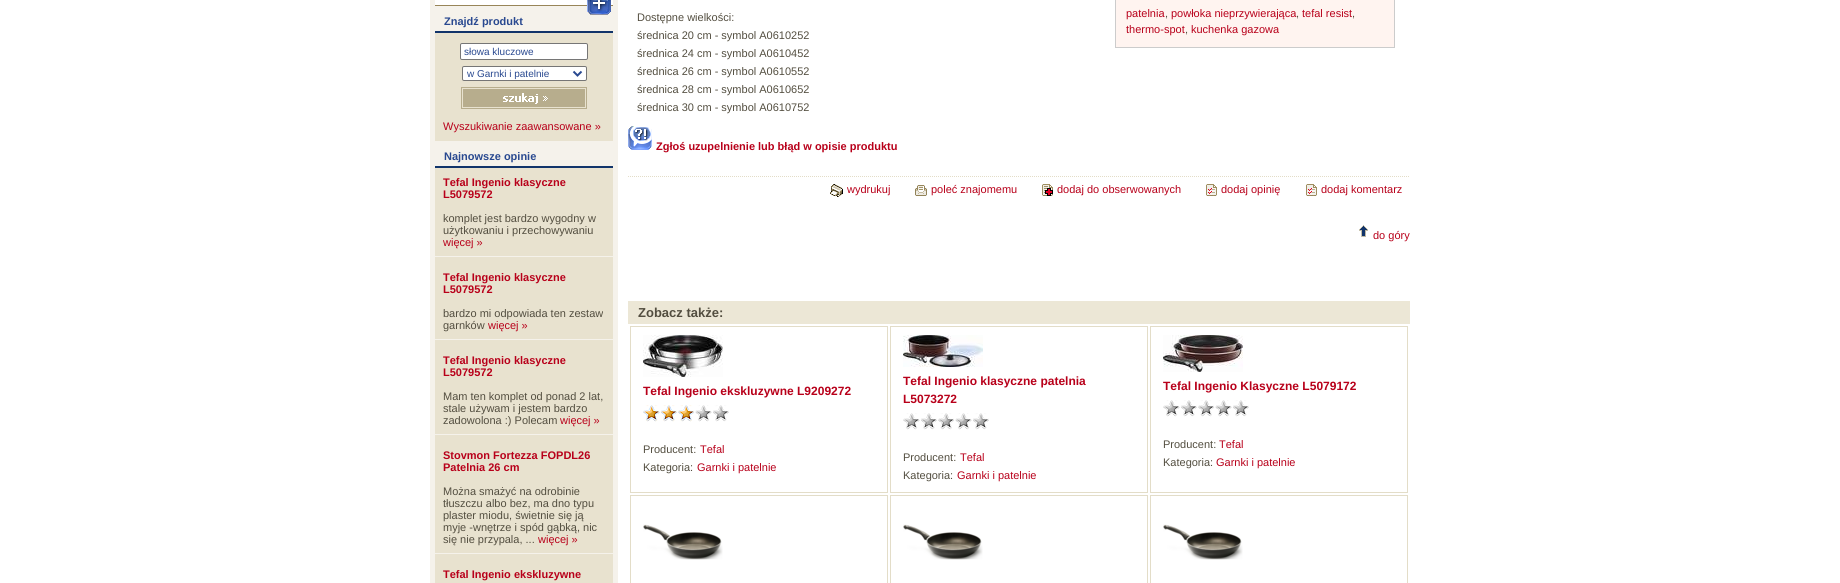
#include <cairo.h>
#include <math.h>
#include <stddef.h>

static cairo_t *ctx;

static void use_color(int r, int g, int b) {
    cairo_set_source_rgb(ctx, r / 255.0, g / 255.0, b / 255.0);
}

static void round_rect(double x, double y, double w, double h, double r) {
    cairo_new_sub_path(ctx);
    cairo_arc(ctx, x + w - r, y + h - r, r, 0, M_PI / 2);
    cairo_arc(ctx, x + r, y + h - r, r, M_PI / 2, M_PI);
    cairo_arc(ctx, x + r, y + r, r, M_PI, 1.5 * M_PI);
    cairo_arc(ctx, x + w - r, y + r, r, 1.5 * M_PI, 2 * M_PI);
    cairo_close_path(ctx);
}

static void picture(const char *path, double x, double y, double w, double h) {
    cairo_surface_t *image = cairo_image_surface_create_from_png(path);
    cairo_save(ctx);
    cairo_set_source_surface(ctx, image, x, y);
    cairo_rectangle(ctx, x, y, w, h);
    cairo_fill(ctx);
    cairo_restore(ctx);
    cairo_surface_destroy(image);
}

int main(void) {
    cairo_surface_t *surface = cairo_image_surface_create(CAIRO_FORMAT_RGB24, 1840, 583);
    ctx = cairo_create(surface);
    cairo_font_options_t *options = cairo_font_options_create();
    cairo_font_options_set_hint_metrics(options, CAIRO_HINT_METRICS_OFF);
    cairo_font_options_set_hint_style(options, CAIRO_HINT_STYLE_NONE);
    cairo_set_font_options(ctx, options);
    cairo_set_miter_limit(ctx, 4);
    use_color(255, 255, 255);
    cairo_paint(ctx);
    use_color(245, 242, 235);
    cairo_rectangle(ctx, 430, 0, 188, 583);
    cairo_fill(ctx);
    use_color(255, 255, 255);
    cairo_rectangle(ctx, 435, 0, 178, 5);
    cairo_fill(ctx);
    use_color(152, 133, 88);
    cairo_rectangle(ctx, 435, 5, 178, 1);
    cairo_fill(ctx);
    picture("img1.png", 587, 0, 24, 15);
    cairo_select_font_face(ctx, "Liberation Sans", CAIRO_FONT_SLANT_NORMAL, CAIRO_FONT_WEIGHT_BOLD);
    cairo_set_font_size(ctx, 11);
    use_color(41, 73, 144);
    cairo_move_to(ctx, 444, 25);
    cairo_show_text(ctx, "Znajdź produkt");
    use_color(232, 226, 207);
    cairo_rectangle(ctx, 435, 33, 178, 108);
    cairo_fill(ctx);
    use_color(17, 52, 106);
    cairo_rectangle(ctx, 435, 31, 178, 2);
    cairo_fill(ctx);
    use_color(255, 255, 255);
    round_rect(460.5, 43.5, 127, 16, 1.5);
    cairo_fill_preserve(ctx);
    use_color(118, 118, 118);
    cairo_set_line_width(ctx, 1);
    cairo_stroke(ctx);
    cairo_select_font_face(ctx, "Liberation Sans", CAIRO_FONT_SLANT_NORMAL, CAIRO_FONT_WEIGHT_NORMAL);
    cairo_set_font_size(ctx, 10);
    use_color(41, 73, 144);
    cairo_move_to(ctx, 464, 55);
    cairo_show_text(ctx, "słowa kluczowe");
    use_color(255, 255, 255);
    round_rect(462.5, 66.5, 124, 14, 1.5);
    cairo_fill_preserve(ctx);
    use_color(118, 118, 118);
    cairo_stroke(ctx);
    cairo_new_path(ctx);
    cairo_move_to(ctx, 573.5, 71.5);
    cairo_line_to(ctx, 577.5, 75.5);
    cairo_line_to(ctx, 581.5, 71.5);
    use_color(41, 73, 144);
    cairo_set_line_width(ctx, 2);
    cairo_stroke(ctx);
    cairo_move_to(ctx, 467, 77);
    cairo_show_text(ctx, "w Garnki i patelnie");
    picture("img2.png", 461, 87, 126, 22);
    cairo_set_font_size(ctx, 11);
    use_color(184, 0, 26);
    cairo_move_to(ctx, 443, 130);
    cairo_show_text(ctx, "Wyszukiwanie zaawansowane »");
    cairo_select_font_face(ctx, "Liberation Sans", CAIRO_FONT_SLANT_NORMAL, CAIRO_FONT_WEIGHT_BOLD);
    use_color(41, 73, 144);
    cairo_move_to(ctx, 444, 160);
    cairo_show_text(ctx, "Najnowsze opinie");
    use_color(232, 226, 207);
    cairo_rectangle(ctx, 435, 168, 178, 415);
    cairo_fill(ctx);
    use_color(17, 52, 106);
    cairo_rectangle(ctx, 435, 166, 178, 2);
    cairo_fill(ctx);
    use_color(184, 0, 26);
    cairo_move_to(ctx, 443, 186);
    cairo_show_text(ctx, "Tefal Ingenio klasyczne");
    cairo_move_to(ctx, 443, 198);
    cairo_show_text(ctx, "L5079572");
    cairo_select_font_face(ctx, "Liberation Sans", CAIRO_FONT_SLANT_NORMAL, CAIRO_FONT_WEIGHT_NORMAL);
    use_color(83, 78, 64);
    cairo_move_to(ctx, 443, 222);
    cairo_show_text(ctx, "komplet jest bardzo wygodny w");
    cairo_move_to(ctx, 443, 234);
    cairo_show_text(ctx, "użytkowaniu i przechowywaniu");
    use_color(184, 0, 26);
    cairo_move_to(ctx, 443, 246);
    cairo_show_text(ctx, "więcej »");
    use_color(245, 242, 235);
    cairo_rectangle(ctx, 435, 256, 178, 1);
    cairo_fill(ctx);
    cairo_select_font_face(ctx, "Liberation Sans", CAIRO_FONT_SLANT_NORMAL, CAIRO_FONT_WEIGHT_BOLD);
    use_color(184, 0, 26);
    cairo_move_to(ctx, 443, 281);
    cairo_show_text(ctx, "Tefal Ingenio klasyczne");
    cairo_move_to(ctx, 443, 293);
    cairo_show_text(ctx, "L5079572");
    cairo_select_font_face(ctx, "Liberation Sans", CAIRO_FONT_SLANT_NORMAL, CAIRO_FONT_WEIGHT_NORMAL);
    use_color(83, 78, 64);
    cairo_move_to(ctx, 443, 317);
    cairo_show_text(ctx, "bardzo mi odpowiada ten zestaw");
    cairo_move_to(ctx, 443, 329);
    cairo_show_text(ctx, "garnków");
    use_color(184, 0, 26);
    cairo_move_to(ctx, 488, 329);
    cairo_show_text(ctx, "więcej »");
    use_color(245, 242, 235);
    cairo_rectangle(ctx, 435, 339, 178, 1);
    cairo_fill(ctx);
    cairo_select_font_face(ctx, "Liberation Sans", CAIRO_FONT_SLANT_NORMAL, CAIRO_FONT_WEIGHT_BOLD);
    use_color(184, 0, 26);
    cairo_move_to(ctx, 443, 364);
    cairo_show_text(ctx, "Tefal Ingenio klasyczne");
    cairo_move_to(ctx, 443, 376);
    cairo_show_text(ctx, "L5079572");
    cairo_select_font_face(ctx, "Liberation Sans", CAIRO_FONT_SLANT_NORMAL, CAIRO_FONT_WEIGHT_NORMAL);
    use_color(83, 78, 64);
    cairo_move_to(ctx, 443, 400);
    cairo_show_text(ctx, "Mam ten komplet od ponad 2 lat,");
    cairo_move_to(ctx, 443, 412);
    cairo_show_text(ctx, "stale używam i jestem bardzo");
    cairo_move_to(ctx, 443, 424);
    cairo_show_text(ctx, "zadowolona :) Polecam");
    use_color(184, 0, 26);
    cairo_move_to(ctx, 560, 424);
    cairo_show_text(ctx, "więcej »");
    use_color(245, 242, 235);
    cairo_rectangle(ctx, 435, 434, 178, 1);
    cairo_fill(ctx);
    cairo_select_font_face(ctx, "Liberation Sans", CAIRO_FONT_SLANT_NORMAL, CAIRO_FONT_WEIGHT_BOLD);
    use_color(184, 0, 26);
    cairo_move_to(ctx, 443, 459);
    cairo_show_text(ctx, "Stovmon Fortezza FOPDL26");
    cairo_move_to(ctx, 443, 471);
    cairo_show_text(ctx, "Patelnia 26 cm");
    cairo_select_font_face(ctx, "Liberation Sans", CAIRO_FONT_SLANT_NORMAL, CAIRO_FONT_WEIGHT_NORMAL);
    use_color(83, 78, 64);
    cairo_move_to(ctx, 443, 495);
    cairo_show_text(ctx, "Można smażyć na odrobinie");
    cairo_move_to(ctx, 443, 507);
    cairo_show_text(ctx, "tłuszczu albo bez, ma dno typu");
    cairo_move_to(ctx, 443, 519);
    cairo_show_text(ctx, "plaster miodu, świetnie się ją");
    cairo_move_to(ctx, 443, 531);
    cairo_show_text(ctx, "myje -wnętrze i spód gąbką, nic");
    cairo_move_to(ctx, 443, 543);
    cairo_show_text(ctx, "się nie przypala, ...");
    use_color(184, 0, 26);
    cairo_move_to(ctx, 538, 543);
    cairo_show_text(ctx, "więcej »");
    use_color(245, 242, 235);
    cairo_rectangle(ctx, 435, 553, 178, 1);
    cairo_fill(ctx);
    cairo_select_font_face(ctx, "Liberation Sans", CAIRO_FONT_SLANT_NORMAL, CAIRO_FONT_WEIGHT_BOLD);
    use_color(184, 0, 26);
    cairo_move_to(ctx, 443, 578);
    cairo_show_text(ctx, "Tefal Ingenio ekskluzywne");
    cairo_select_font_face(ctx, "Liberation Sans", CAIRO_FONT_SLANT_NORMAL, CAIRO_FONT_WEIGHT_NORMAL);
    use_color(83, 78, 64);
    cairo_move_to(ctx, 637, 21);
    cairo_show_text(ctx, "Dostępne wielkości:");
    cairo_move_to(ctx, 637, 39);
    cairo_show_text(ctx, "średnica 20 cm - symbol A0610252");
    cairo_move_to(ctx, 637, 57);
    cairo_show_text(ctx, "średnica 24 cm - symbol A0610452");
    cairo_move_to(ctx, 637, 75);
    cairo_show_text(ctx, "średnica 26 cm - symbol A0610552");
    cairo_move_to(ctx, 637, 93);
    cairo_show_text(ctx, "średnica 28 cm - symbol A0610652");
    cairo_move_to(ctx, 637, 111);
    cairo_show_text(ctx, "średnica 30 cm - symbol A0610752");
    use_color(255, 244, 240);
    cairo_rectangle(ctx, 1115.5, -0.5, 279, 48);
    cairo_fill_preserve(ctx);
    use_color(204, 204, 204);
    cairo_set_line_width(ctx, 1);
    cairo_stroke(ctx);
    use_color(184, 0, 26);
    cairo_move_to(ctx, 1126, 17);
    cairo_show_text(ctx, "patelnia");
    use_color(83, 78, 64);
    cairo_move_to(ctx, 1165, 17);
    cairo_show_text(ctx, ",");
    use_color(184, 0, 26);
    cairo_move_to(ctx, 1171, 17);
    cairo_show_text(ctx, "powłoka nieprzywierająca");
    use_color(83, 78, 64);
    cairo_move_to(ctx, 1296, 17);
    cairo_show_text(ctx, ",");
    use_color(184, 0, 26);
    cairo_move_to(ctx, 1302, 17);
    cairo_show_text(ctx, "tefal resist");
    use_color(83, 78, 64);
    cairo_move_to(ctx, 1352, 17);
    cairo_show_text(ctx, ",");
    use_color(184, 0, 26);
    cairo_move_to(ctx, 1126, 33);
    cairo_show_text(ctx, "thermo-spot");
    use_color(83, 78, 64);
    cairo_move_to(ctx, 1185, 33);
    cairo_show_text(ctx, ",");
    use_color(184, 0, 26);
    cairo_move_to(ctx, 1191, 33);
    cairo_show_text(ctx, "kuchenka gazowa");
    picture("img3.png", 628, 126, 24, 24);
    cairo_select_font_face(ctx, "Liberation Sans", CAIRO_FONT_SLANT_NORMAL, CAIRO_FONT_WEIGHT_BOLD);
    cairo_move_to(ctx, 656, 150);
    cairo_show_text(ctx, "Zgłoś uzupelnienie lub błąd w opisie produktu");
    cairo_new_path(ctx);
    cairo_move_to(ctx, 628, 176.5);
    cairo_line_to(ctx, 1410, 176.5);
    use_color(227, 221, 200);
    cairo_set_dash(ctx, (double[]){1, 1}, 2, 0);
    cairo_stroke(ctx);
    picture("img4.png", 830, 184, 13, 13);
    cairo_select_font_face(ctx, "Liberation Sans", CAIRO_FONT_SLANT_NORMAL, CAIRO_FONT_WEIGHT_NORMAL);
    use_color(184, 0, 26);
    cairo_move_to(ctx, 847, 193);
    cairo_show_text(ctx, "wydrukuj");
    picture("img5.png", 915, 185, 12, 11);
    cairo_move_to(ctx, 931, 193);
    cairo_show_text(ctx, "poleć znajomemu");
    picture("img6.png", 1042, 184, 11, 12);
    cairo_move_to(ctx, 1057, 193);
    cairo_show_text(ctx, "dodaj do obserwowanych");
    picture("img7.png", 1206, 184, 11, 12);
    cairo_move_to(ctx, 1221, 193);
    cairo_show_text(ctx, "dodaj opinię");
    picture("img7.png", 1306, 184, 11, 12);
    cairo_move_to(ctx, 1321, 193);
    cairo_show_text(ctx, "dodaj komentarz");
    picture("img8.png", 1359, 225, 9, 12);
    cairo_move_to(ctx, 1373, 239);
    cairo_show_text(ctx, "do góry");
    use_color(236, 231, 214);
    cairo_rectangle(ctx, 628, 301, 782, 23);
    cairo_fill(ctx);
    cairo_select_font_face(ctx, "Liberation Sans", CAIRO_FONT_SLANT_NORMAL, CAIRO_FONT_WEIGHT_BOLD);
    cairo_set_font_size(ctx, 13);
    use_color(83, 78, 64);
    cairo_move_to(ctx, 638, 317);
    cairo_show_text(ctx, "Zobacz także:");
    cairo_rectangle(ctx, 630.5, 326.5, 257, 166);
    use_color(227, 221, 200);
    cairo_set_dash(ctx, NULL, 0, 0);
    cairo_stroke(ctx);
    picture("img9.png", 643, 335, 80, 42);
    cairo_set_font_size(ctx, 12);
    use_color(184, 0, 26);
    cairo_move_to(ctx, 643, 395);
    cairo_show_text(ctx, "Tefal Ingenio ekskluzywne L9209272");
    picture("img10.png", 643, 405, 86, 17);
    cairo_select_font_face(ctx, "Liberation Sans", CAIRO_FONT_SLANT_NORMAL, CAIRO_FONT_WEIGHT_NORMAL);
    cairo_set_font_size(ctx, 11);
    use_color(83, 78, 64);
    cairo_move_to(ctx, 643, 453);
    cairo_show_text(ctx, "Producent:");
    use_color(184, 0, 26);
    cairo_move_to(ctx, 700, 453);
    cairo_show_text(ctx, "Tefal");
    use_color(83, 78, 64);
    cairo_move_to(ctx, 643, 471);
    cairo_show_text(ctx, "Kategoria:");
    use_color(184, 0, 26);
    cairo_move_to(ctx, 697, 471);
    cairo_show_text(ctx, "Garnki i patelnie");
    cairo_rectangle(ctx, 890.5, 326.5, 257, 166);
    use_color(227, 221, 200);
    cairo_stroke(ctx);
    picture("img11.png", 903, 335, 80, 32);
    cairo_select_font_face(ctx, "Liberation Sans", CAIRO_FONT_SLANT_NORMAL, CAIRO_FONT_WEIGHT_BOLD);
    cairo_set_font_size(ctx, 12);
    use_color(184, 0, 26);
    cairo_move_to(ctx, 903, 385);
    cairo_show_text(ctx, "Tefal Ingenio klasyczne patelnia");
    cairo_move_to(ctx, 903, 403);
    cairo_show_text(ctx, "L5073272");
    picture("img12.png", 903, 413, 86, 17);
    cairo_select_font_face(ctx, "Liberation Sans", CAIRO_FONT_SLANT_NORMAL, CAIRO_FONT_WEIGHT_NORMAL);
    cairo_set_font_size(ctx, 11);
    use_color(83, 78, 64);
    cairo_move_to(ctx, 903, 461);
    cairo_show_text(ctx, "Producent:");
    use_color(184, 0, 26);
    cairo_move_to(ctx, 960, 461);
    cairo_show_text(ctx, "Tefal");
    use_color(83, 78, 64);
    cairo_move_to(ctx, 903, 479);
    cairo_show_text(ctx, "Kategoria:");
    use_color(184, 0, 26);
    cairo_move_to(ctx, 957, 479);
    cairo_show_text(ctx, "Garnki i patelnie");
    cairo_rectangle(ctx, 1150.5, 326.5, 257, 166);
    use_color(227, 221, 200);
    cairo_stroke(ctx);
    picture("img13.png", 1163, 335, 80, 37);
    cairo_select_font_face(ctx, "Liberation Sans", CAIRO_FONT_SLANT_NORMAL, CAIRO_FONT_WEIGHT_BOLD);
    cairo_set_font_size(ctx, 12);
    use_color(184, 0, 26);
    cairo_move_to(ctx, 1163, 390);
    cairo_show_text(ctx, "Tefal Ingenio Klasyczne L5079172");
    picture("img12.png", 1163, 400, 86, 17);
    cairo_select_font_face(ctx, "Liberation Sans", CAIRO_FONT_SLANT_NORMAL, CAIRO_FONT_WEIGHT_NORMAL);
    cairo_set_font_size(ctx, 11);
    use_color(83, 78, 64);
    cairo_move_to(ctx, 1163, 448);
    cairo_show_text(ctx, "Producent:");
    use_color(184, 0, 26);
    cairo_move_to(ctx, 1219, 448);
    cairo_show_text(ctx, "Tefal");
    use_color(83, 78, 64);
    cairo_move_to(ctx, 1163, 466);
    cairo_show_text(ctx, "Kategoria:");
    use_color(184, 0, 26);
    cairo_move_to(ctx, 1216, 466);
    cairo_show_text(ctx, "Garnki i patelnie");
    cairo_rectangle(ctx, 630.5, 495.5, 257, 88);
    use_color(227, 221, 200);
    cairo_stroke(ctx);
    picture("img14.png", 643, 524, 80, 36);
    cairo_rectangle(ctx, 890.5, 495.5, 257, 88);
    cairo_stroke(ctx);
    picture("img14.png", 903, 524, 80, 36);
    cairo_rectangle(ctx, 1150.5, 495.5, 257, 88);
    cairo_stroke(ctx);
    picture("img14.png", 1163, 524, 80, 36);
    cairo_surface_write_to_png(surface, "result.png");
    cairo_font_options_destroy(options);
    cairo_destroy(ctx);
    cairo_surface_destroy(surface);
    return 0;
}
